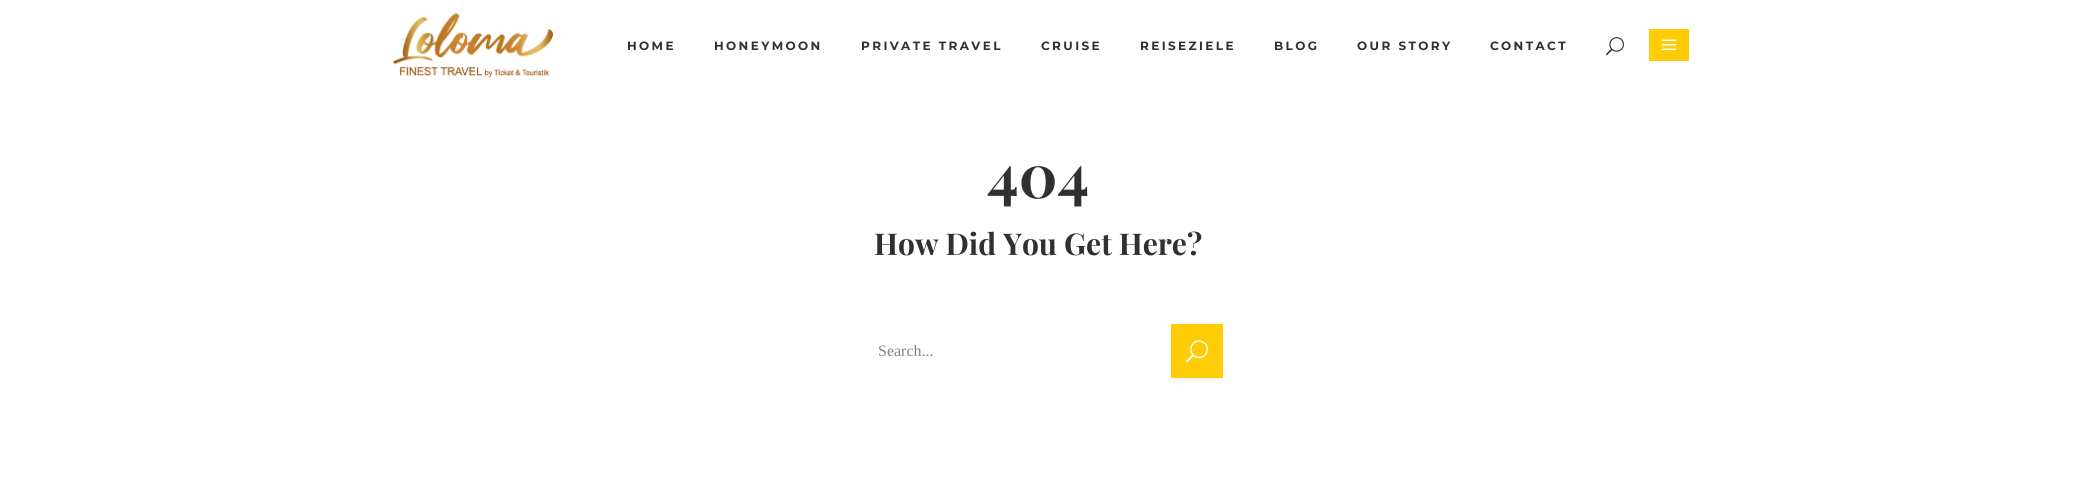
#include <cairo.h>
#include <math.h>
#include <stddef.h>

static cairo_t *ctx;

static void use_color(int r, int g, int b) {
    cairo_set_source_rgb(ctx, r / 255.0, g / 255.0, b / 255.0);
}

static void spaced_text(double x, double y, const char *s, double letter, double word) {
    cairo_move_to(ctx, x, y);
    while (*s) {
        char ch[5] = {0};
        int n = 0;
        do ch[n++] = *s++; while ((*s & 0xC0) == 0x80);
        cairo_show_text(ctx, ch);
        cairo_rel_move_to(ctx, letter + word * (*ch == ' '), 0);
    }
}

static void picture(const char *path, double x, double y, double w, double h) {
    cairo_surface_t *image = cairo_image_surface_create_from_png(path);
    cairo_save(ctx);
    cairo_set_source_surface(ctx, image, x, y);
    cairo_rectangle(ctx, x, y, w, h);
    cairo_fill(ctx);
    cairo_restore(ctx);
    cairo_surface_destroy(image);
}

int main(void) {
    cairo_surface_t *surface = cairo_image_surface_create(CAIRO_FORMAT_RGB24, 2077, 496);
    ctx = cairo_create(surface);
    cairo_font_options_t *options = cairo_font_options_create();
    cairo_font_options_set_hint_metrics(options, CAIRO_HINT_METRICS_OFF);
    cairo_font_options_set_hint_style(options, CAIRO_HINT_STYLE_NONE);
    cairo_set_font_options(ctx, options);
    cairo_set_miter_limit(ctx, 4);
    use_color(255, 255, 255);
    cairo_paint(ctx);
    picture("img1.png", 393, 13, 160, 64);
    cairo_select_font_face(ctx, "Montserrat", CAIRO_FONT_SLANT_NORMAL, CAIRO_FONT_WEIGHT_BOLD);
    cairo_set_font_size(ctx, 12);
    use_color(48, 48, 48);
    spaced_text(627, 50, "HOME", 2.4, 0);
    spaced_text(714, 50, "HONEYMOON", 2.4, 0);
    spaced_text(861, 50, "PRIVATE TRAVEL", 2.4, 0);
    spaced_text(1041, 50, "CRUISE", 2.4, 0);
    spaced_text(1140, 50, "REISEZIELE", 2.4, 0);
    spaced_text(1274, 50, "BLOG", 2.4, 0);
    spaced_text(1357, 50, "OUR STORY", 2.4, 0);
    spaced_text(1490, 50, "CONTACT", 2.4, 0);
    picture("img2.png", 1606, 37, 18, 19);
    use_color(255, 204, 5);
    cairo_rectangle(ctx, 1649, 29, 40, 32);
    cairo_fill(ctx);
    picture("img3.png", 1661, 39, 16, 11);
    cairo_select_font_face(ctx, "Playfair Display", CAIRO_FONT_SLANT_NORMAL, CAIRO_FONT_WEIGHT_BOLD);
    cairo_set_font_size(ctx, 60);
    use_color(48, 48, 48);
    cairo_move_to(ctx, 987, 198);
    cairo_show_text(ctx, "404");
    cairo_set_font_size(ctx, 30);
    cairo_move_to(ctx, 874, 255);
    cairo_show_text(ctx, "How Did You Get Here?");
    cairo_select_font_face(ctx, "Liberation Serif", CAIRO_FONT_SLANT_NORMAL, CAIRO_FONT_WEIGHT_NORMAL);
    cairo_set_font_size(ctx, 16);
    use_color(128, 130, 133);
    cairo_move_to(ctx, 878, 356);
    cairo_show_text(ctx, "Search...");
    use_color(255, 204, 5);
    cairo_rectangle(ctx, 1171, 324, 52, 54);
    cairo_fill(ctx);
    picture("img4.png", 1185, 340, 23, 23);
    cairo_surface_write_to_png(surface, "result.png");
    cairo_font_options_destroy(options);
    cairo_destroy(ctx);
    cairo_surface_destroy(surface);
    return 0;
}
